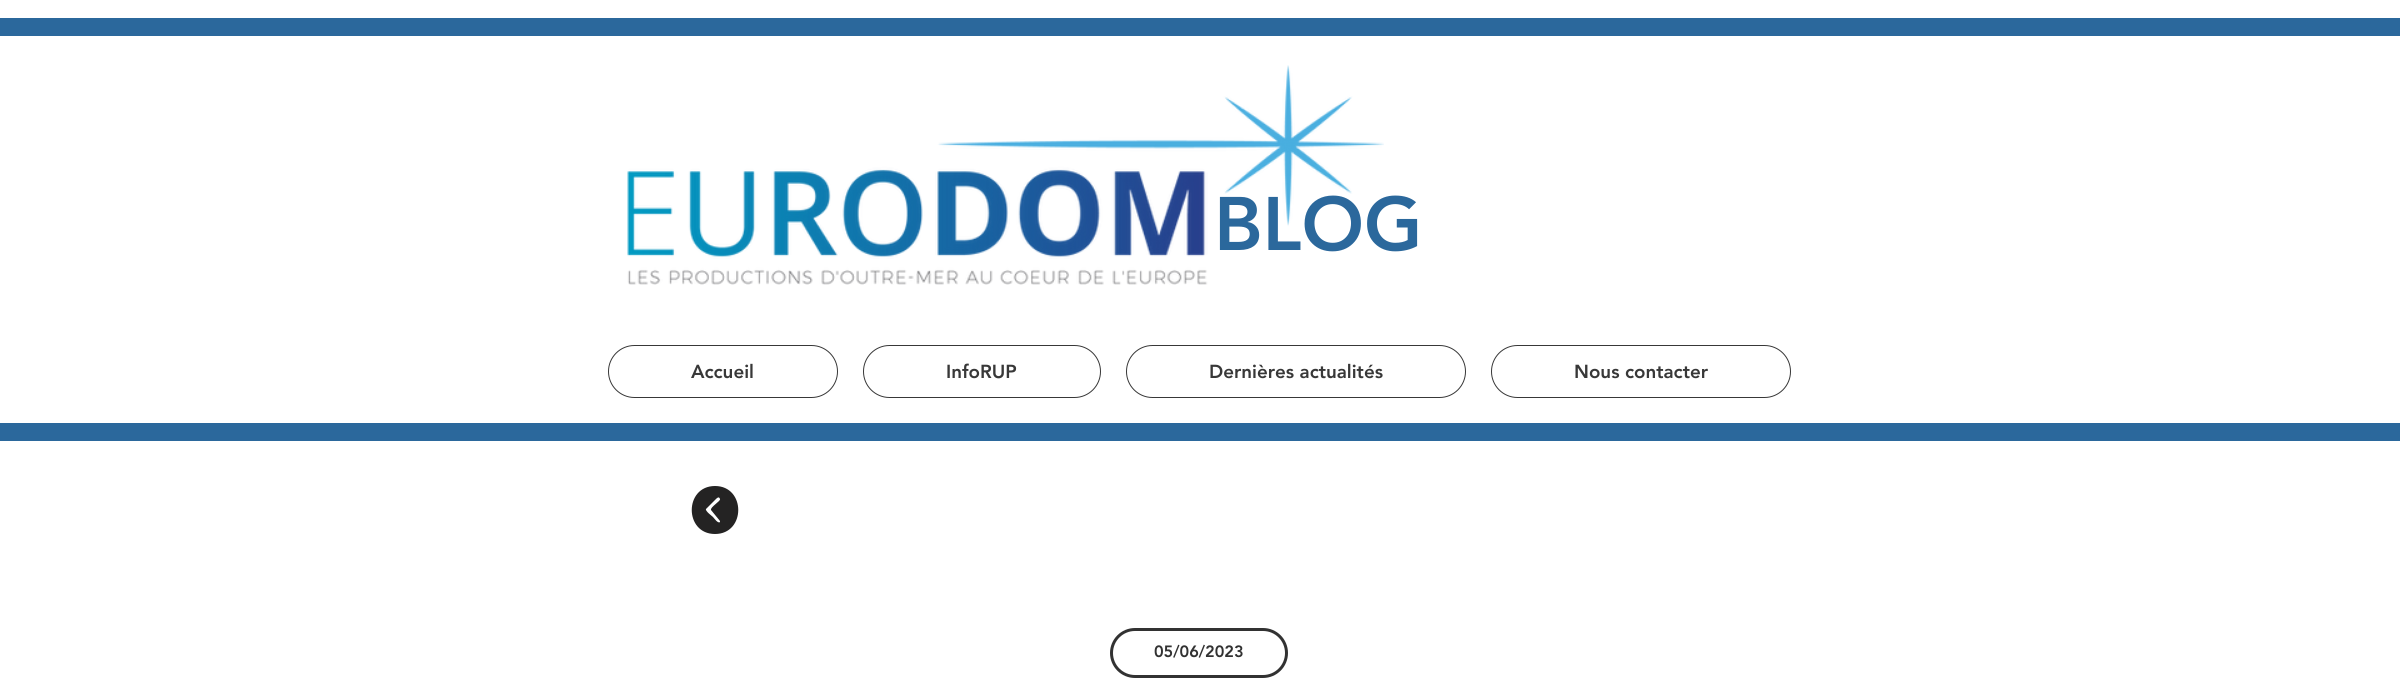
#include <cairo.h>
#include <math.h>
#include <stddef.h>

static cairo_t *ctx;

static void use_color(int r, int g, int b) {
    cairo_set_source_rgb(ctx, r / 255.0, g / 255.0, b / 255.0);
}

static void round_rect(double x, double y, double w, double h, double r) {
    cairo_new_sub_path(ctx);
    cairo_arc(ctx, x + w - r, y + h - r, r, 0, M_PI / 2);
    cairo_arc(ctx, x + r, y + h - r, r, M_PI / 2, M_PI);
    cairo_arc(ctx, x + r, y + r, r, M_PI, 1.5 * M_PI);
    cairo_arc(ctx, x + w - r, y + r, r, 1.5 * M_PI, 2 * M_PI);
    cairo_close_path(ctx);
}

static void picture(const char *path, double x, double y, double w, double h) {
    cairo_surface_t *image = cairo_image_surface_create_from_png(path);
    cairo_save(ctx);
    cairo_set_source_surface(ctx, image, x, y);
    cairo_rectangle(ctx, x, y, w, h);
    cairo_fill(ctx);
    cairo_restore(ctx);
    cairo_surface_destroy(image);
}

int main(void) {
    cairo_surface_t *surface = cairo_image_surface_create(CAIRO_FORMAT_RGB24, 2400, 688);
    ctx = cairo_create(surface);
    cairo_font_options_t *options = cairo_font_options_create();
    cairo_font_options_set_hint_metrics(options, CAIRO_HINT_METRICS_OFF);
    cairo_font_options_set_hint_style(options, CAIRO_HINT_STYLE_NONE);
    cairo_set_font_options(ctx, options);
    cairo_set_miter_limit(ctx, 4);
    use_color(255, 255, 255);
    cairo_paint(ctx);
    use_color(43, 104, 156);
    cairo_rectangle(ctx, 0, 18, 2400, 18);
    cairo_fill(ctx);
    cairo_rectangle(ctx, 0, 423, 2400, 18);
    cairo_fill(ctx);
    cairo_select_font_face(ctx, "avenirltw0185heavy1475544 Black", CAIRO_FONT_SLANT_NORMAL, CAIRO_FONT_WEIGHT_NORMAL);
    cairo_set_font_size(ctx, 75);
    cairo_move_to(ctx, 1214, 250);
    cairo_show_text(ctx, "BLOG");
    picture("img1.png", 627, 65, 757, 220);
    round_rect(608.5, 345.5, 229, 52, 26);
    use_color(56, 56, 56);
    cairo_set_line_width(ctx, 1);
    cairo_stroke(ctx);
    cairo_set_font_size(ctx, 18.75);
    cairo_move_to(ctx, 691, 378);
    cairo_show_text(ctx, "Accueil");
    round_rect(863.5, 345.5, 237, 52, 26);
    cairo_stroke(ctx);
    cairo_move_to(ctx, 946, 378);
    cairo_show_text(ctx, "InfoRUP");
    round_rect(1126.5, 345.5, 339, 52, 26);
    cairo_stroke(ctx);
    cairo_move_to(ctx, 1209, 378);
    cairo_show_text(ctx, "Dernières actualités");
    round_rect(1491.5, 345.5, 299, 52, 26);
    cairo_stroke(ctx);
    cairo_move_to(ctx, 1574, 378);
    cairo_show_text(ctx, "Nous contacter");
    use_color(36, 35, 35);
    cairo_new_path(ctx);
    cairo_move_to(ctx, 715, 534);
    cairo_curve_to(ctx, 746, 534, 746, 486, 715, 486);
    cairo_curve_to(ctx, 684, 486, 684, 534, 715, 534);
    cairo_close_path(ctx);
    cairo_move_to(ctx, 706, 509);
    cairo_line_to(ctx, 716, 499);
    cairo_curve_to(ctx, 717, 498, 719, 496, 720, 499);
    cairo_curve_to(ctx, 721, 501, 710, 507, 711, 510);
    cairo_line_to(ctx, 720, 521);
    cairo_line_to(ctx, 720, 522);
    cairo_curve_to(ctx, 718, 524, 714, 518, 713, 517);
    cairo_curve_to(ctx, 712, 516, 705, 511, 706, 509);
    cairo_close_path(ctx);
    cairo_fill(ctx);
    round_rect(1111.5, 629.5, 175, 47, 23.5);
    use_color(50, 50, 50);
    cairo_set_line_width(ctx, 3);
    cairo_stroke(ctx);
    cairo_set_font_size(ctx, 16.25);
    cairo_move_to(ctx, 1154, 657);
    cairo_show_text(ctx, "05/06/2023");
    cairo_surface_write_to_png(surface, "result.png");
    cairo_font_options_destroy(options);
    cairo_destroy(ctx);
    cairo_surface_destroy(surface);
    return 0;
}
